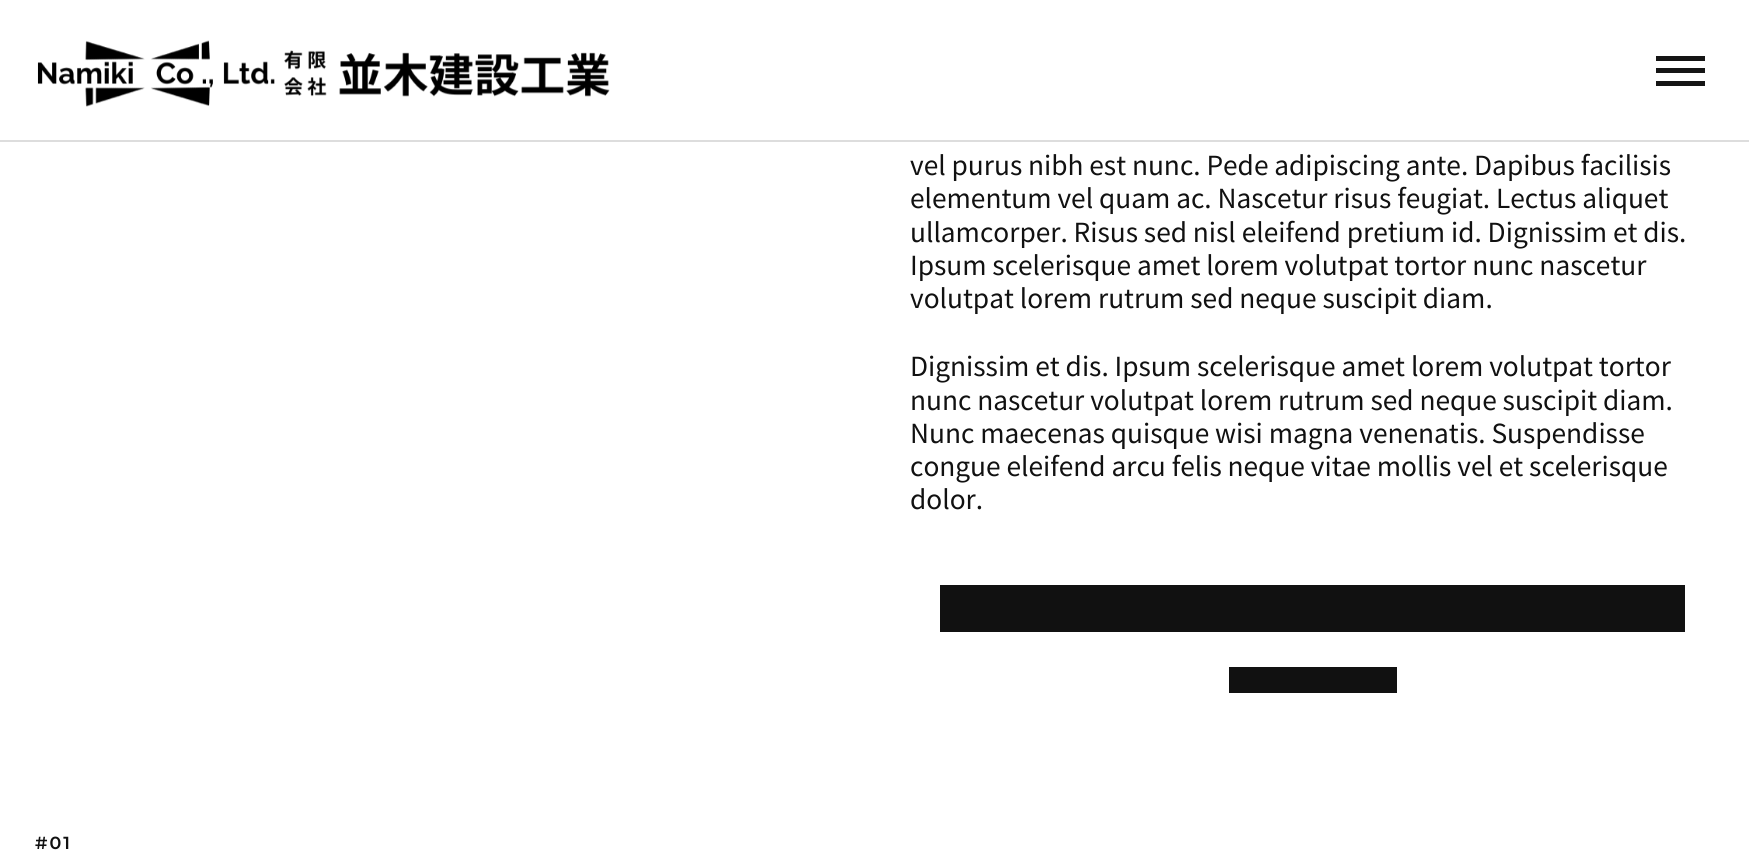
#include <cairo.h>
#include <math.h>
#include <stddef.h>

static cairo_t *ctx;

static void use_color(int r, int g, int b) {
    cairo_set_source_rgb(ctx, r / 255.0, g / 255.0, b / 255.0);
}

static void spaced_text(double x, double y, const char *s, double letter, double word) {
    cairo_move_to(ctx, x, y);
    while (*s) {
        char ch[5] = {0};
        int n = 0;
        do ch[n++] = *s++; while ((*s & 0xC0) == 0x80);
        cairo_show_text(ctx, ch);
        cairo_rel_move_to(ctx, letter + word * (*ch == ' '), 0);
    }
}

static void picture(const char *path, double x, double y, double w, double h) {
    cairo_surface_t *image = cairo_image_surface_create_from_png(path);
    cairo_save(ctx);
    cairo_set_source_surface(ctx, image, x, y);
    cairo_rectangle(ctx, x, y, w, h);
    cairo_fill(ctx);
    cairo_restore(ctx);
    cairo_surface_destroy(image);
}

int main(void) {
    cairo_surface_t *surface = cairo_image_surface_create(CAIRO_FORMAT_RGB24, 1749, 862);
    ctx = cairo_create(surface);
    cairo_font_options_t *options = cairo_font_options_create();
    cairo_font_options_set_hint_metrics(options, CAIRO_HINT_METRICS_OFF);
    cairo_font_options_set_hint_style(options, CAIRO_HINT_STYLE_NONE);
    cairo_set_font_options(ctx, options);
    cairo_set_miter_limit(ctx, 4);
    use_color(255, 255, 255);
    cairo_paint(ctx);
    use_color(221, 221, 221);
    cairo_rectangle(ctx, 0, 140, 1749, 2);
    cairo_fill(ctx);
    picture("img1.png", 37, 40, 573, 67);
    use_color(21, 21, 21);
    cairo_rectangle(ctx, 1656, 68, 49, 5);
    cairo_fill(ctx);
    cairo_rectangle(ctx, 1656, 56, 49, 5);
    cairo_fill(ctx);
    cairo_rectangle(ctx, 1656, 81, 49, 5);
    cairo_fill(ctx);
    cairo_select_font_face(ctx, "Noto Sans JP", CAIRO_FONT_SLANT_NORMAL, CAIRO_FONT_WEIGHT_NORMAL);
    cairo_set_font_size(ctx, 26.25);
    use_color(17, 17, 17);
    cairo_move_to(ctx, 910, 175);
    cairo_show_text(ctx, "vel purus nibh est nunc. Pede adipiscing ante. Dapibus facilisis");
    cairo_move_to(ctx, 910, 208);
    cairo_show_text(ctx, "elementum vel quam ac. Nascetur risus feugiat. Lectus aliquet");
    cairo_move_to(ctx, 910, 242);
    cairo_show_text(ctx, "ullamcorper. Risus sed nisl eleifend pretium id. Dignissim et dis.");
    cairo_move_to(ctx, 910, 275);
    cairo_show_text(ctx, "Ipsum scelerisque amet lorem volutpat tortor nunc nascetur");
    cairo_move_to(ctx, 910, 308);
    cairo_show_text(ctx, "volutpat lorem rutrum sed neque suscipit diam.");
    cairo_move_to(ctx, 910, 376);
    cairo_show_text(ctx, "Dignissim et dis. Ipsum scelerisque amet lorem volutpat tortor");
    cairo_move_to(ctx, 910, 410);
    cairo_show_text(ctx, "nunc nascetur volutpat lorem rutrum sed neque suscipit diam.");
    cairo_move_to(ctx, 910, 443);
    cairo_show_text(ctx, "Nunc maecenas quisque wisi magna venenatis. Suspendisse");
    cairo_move_to(ctx, 910, 476);
    cairo_show_text(ctx, "congue eleifend arcu felis neque vitae mollis vel et scelerisque");
    cairo_move_to(ctx, 910, 509);
    cairo_show_text(ctx, "dolor.");
    cairo_rectangle(ctx, 940, 585, 745, 47);
    cairo_fill(ctx);
    cairo_rectangle(ctx, 1229, 667, 168, 26);
    cairo_fill(ctx);
    cairo_select_font_face(ctx, "Montserrat SemiBold", CAIRO_FONT_SLANT_NORMAL, CAIRO_FONT_WEIGHT_NORMAL);
    cairo_set_font_size(ctx, 17.5);
    spaced_text(35, 849, "#01", 2, 0);
    cairo_surface_write_to_png(surface, "result.png");
    cairo_font_options_destroy(options);
    cairo_destroy(ctx);
    cairo_surface_destroy(surface);
    return 0;
}
